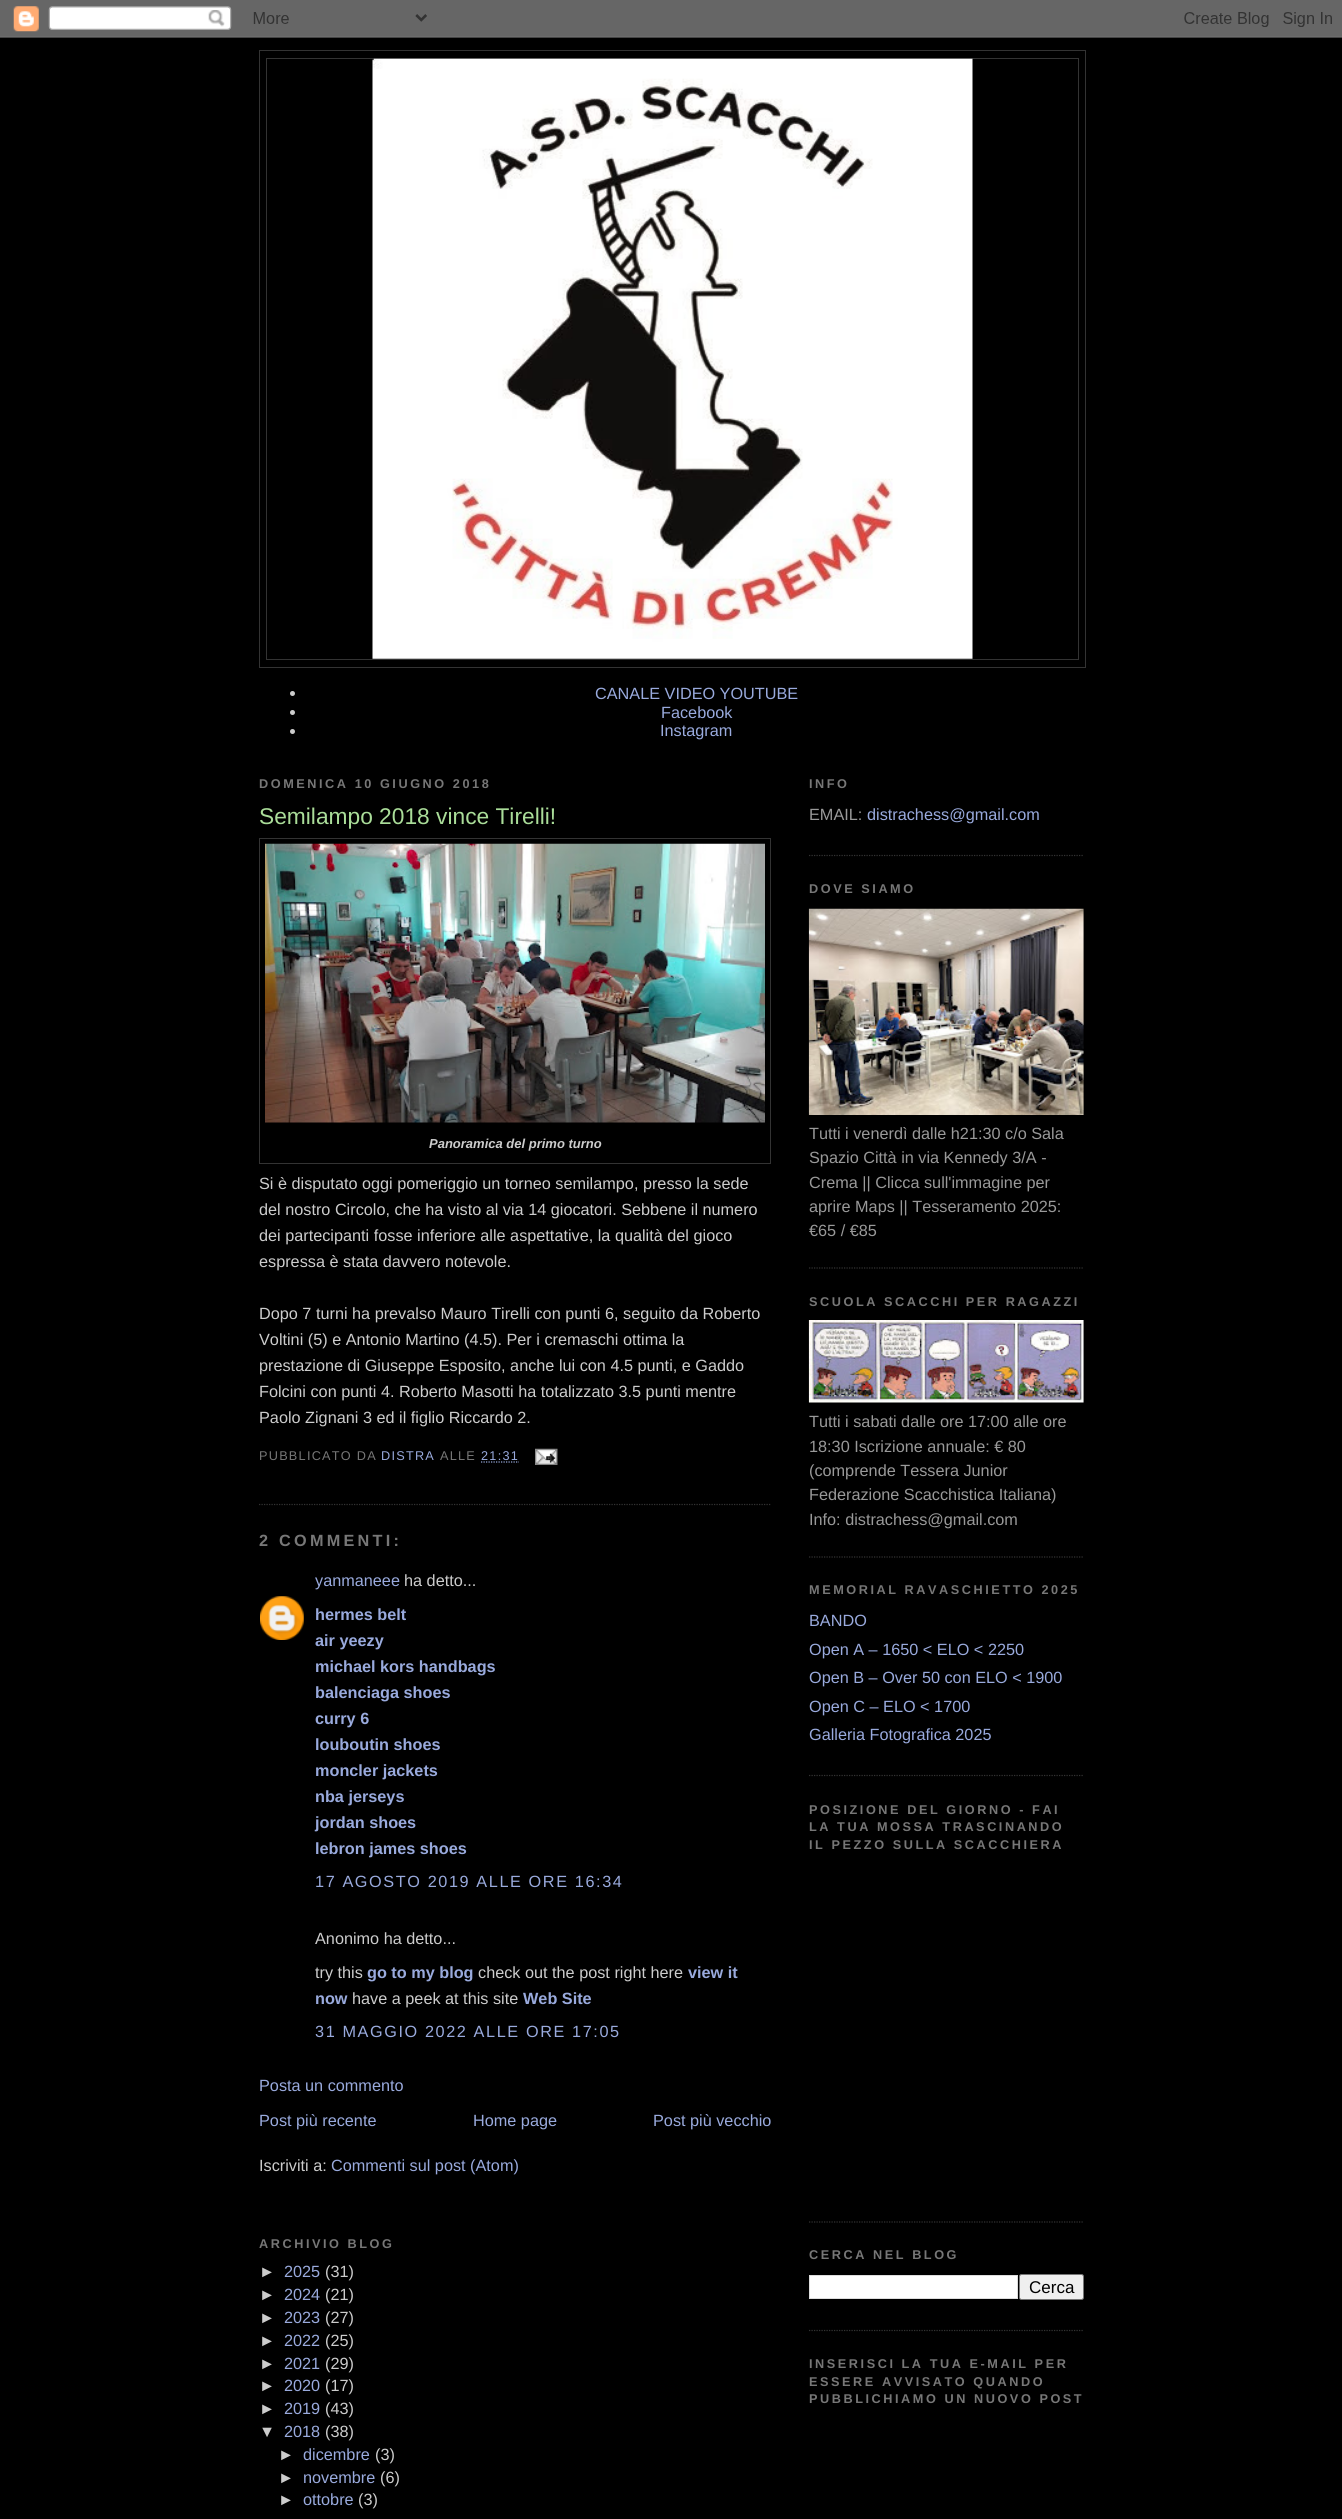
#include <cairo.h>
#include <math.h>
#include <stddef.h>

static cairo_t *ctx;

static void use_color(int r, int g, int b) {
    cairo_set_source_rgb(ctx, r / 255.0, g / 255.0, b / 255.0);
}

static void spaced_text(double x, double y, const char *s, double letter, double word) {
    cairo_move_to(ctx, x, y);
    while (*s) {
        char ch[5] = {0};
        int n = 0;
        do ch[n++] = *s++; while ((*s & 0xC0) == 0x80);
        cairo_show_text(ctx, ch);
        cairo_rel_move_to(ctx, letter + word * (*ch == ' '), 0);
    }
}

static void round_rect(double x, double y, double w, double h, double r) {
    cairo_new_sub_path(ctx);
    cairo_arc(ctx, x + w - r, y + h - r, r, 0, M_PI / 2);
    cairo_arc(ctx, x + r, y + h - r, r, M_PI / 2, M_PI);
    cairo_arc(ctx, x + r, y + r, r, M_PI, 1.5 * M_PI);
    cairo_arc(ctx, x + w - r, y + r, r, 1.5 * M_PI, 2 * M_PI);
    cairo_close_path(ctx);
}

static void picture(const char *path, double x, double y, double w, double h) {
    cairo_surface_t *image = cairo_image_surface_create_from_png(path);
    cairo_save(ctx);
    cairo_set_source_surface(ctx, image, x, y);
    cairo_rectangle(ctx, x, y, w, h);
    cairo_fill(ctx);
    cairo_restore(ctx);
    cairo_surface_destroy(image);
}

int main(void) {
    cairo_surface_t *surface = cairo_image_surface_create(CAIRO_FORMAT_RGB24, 1342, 2519);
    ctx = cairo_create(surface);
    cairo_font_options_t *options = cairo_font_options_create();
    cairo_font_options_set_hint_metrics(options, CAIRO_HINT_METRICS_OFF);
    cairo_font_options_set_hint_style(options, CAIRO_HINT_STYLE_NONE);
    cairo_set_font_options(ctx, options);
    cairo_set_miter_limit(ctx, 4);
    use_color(0, 0, 0);
    cairo_paint(ctx);
    picture("img1.png", 0, 0, 1342, 38);
    cairo_rectangle(ctx, 259.5, 50.5, 826, 617);
    use_color(51, 51, 51);
    cairo_set_line_width(ctx, 1);
    cairo_stroke(ctx);
    cairo_rectangle(ctx, 266.5, 58.5, 812, 601);
    cairo_stroke(ctx);
    picture("img2.png", 372, 58, 601, 601);
    use_color(204, 204, 204);
    cairo_arc(ctx, 292.5, 693.5, 2.5, 0, 2 * M_PI);
    cairo_fill(ctx);
    cairo_select_font_face(ctx, "Liberation Sans", CAIRO_FONT_SLANT_NORMAL, CAIRO_FONT_WEIGHT_NORMAL);
    cairo_set_font_size(ctx, 16.25);
    use_color(153, 170, 221);
    cairo_move_to(ctx, 595, 699);
    cairo_show_text(ctx, "CANALE VIDEO YOUTUBE");
    use_color(204, 204, 204);
    cairo_new_path(ctx);
    cairo_arc(ctx, 292.5, 712.5, 2.5, 0, 2 * M_PI);
    cairo_fill(ctx);
    use_color(153, 170, 221);
    cairo_move_to(ctx, 661, 718);
    cairo_show_text(ctx, "Facebook");
    use_color(204, 204, 204);
    cairo_new_path(ctx);
    cairo_arc(ctx, 292.5, 731.5, 2.5, 0, 2 * M_PI);
    cairo_fill(ctx);
    use_color(153, 170, 221);
    cairo_move_to(ctx, 660, 736);
    cairo_show_text(ctx, "Instagram");
    cairo_select_font_face(ctx, "Liberation Sans", CAIRO_FONT_SLANT_NORMAL, CAIRO_FONT_WEIGHT_BOLD);
    cairo_set_font_size(ctx, 12.7);
    use_color(119, 119, 119);
    spaced_text(259, 788, "DOMENICA 10 GIUGNO 2018", 2.55, 0);
    cairo_new_path(ctx);
    cairo_move_to(ctx, 259, 1504.5);
    cairo_line_to(ctx, 771, 1504.5);
    use_color(51, 51, 51);
    cairo_set_line_width(ctx, 1.2);
    cairo_set_dash(ctx, (double[]){1.25, 1.25}, 2, 0);
    cairo_stroke(ctx);
    cairo_select_font_face(ctx, "Liberation Sans", CAIRO_FONT_SLANT_NORMAL, CAIRO_FONT_WEIGHT_NORMAL);
    cairo_set_font_size(ctx, 22.75);
    use_color(170, 221, 153);
    cairo_move_to(ctx, 259, 824);
    cairo_show_text(ctx, "Semilampo 2018 vince Tirelli!");
    cairo_rectangle(ctx, 259.5, 838.5, 511, 325);
    use_color(51, 51, 51);
    cairo_set_line_width(ctx, 1);
    cairo_set_dash(ctx, NULL, 0, 0);
    cairo_stroke(ctx);
    picture("img3.png", 265, 843, 500, 280);
    cairo_select_font_face(ctx, "Liberation Sans", CAIRO_FONT_SLANT_ITALIC, CAIRO_FONT_WEIGHT_BOLD);
    cairo_set_font_size(ctx, 13);
    use_color(204, 204, 204);
    cairo_move_to(ctx, 429, 1148);
    cairo_show_text(ctx, "Panoramica del primo turno");
    cairo_select_font_face(ctx, "Liberation Sans", CAIRO_FONT_SLANT_NORMAL, CAIRO_FONT_WEIGHT_NORMAL);
    cairo_set_font_size(ctx, 16.25);
    cairo_move_to(ctx, 259, 1189);
    cairo_show_text(ctx, "Si è disputato oggi pomeriggio un torneo semilampo, presso la sede");
    cairo_move_to(ctx, 259, 1215);
    cairo_show_text(ctx, "del nostro Circolo, che ha visto al via 14 giocatori. Sebbene il numero");
    cairo_move_to(ctx, 259, 1241);
    cairo_show_text(ctx, "dei partecipanti fosse inferiore alle aspettative, la qualità del gioco");
    cairo_move_to(ctx, 259, 1267);
    cairo_show_text(ctx, "espressa è stata davvero notevole.");
    cairo_move_to(ctx, 259, 1319);
    cairo_show_text(ctx, "Dopo 7 turni ha prevalso Mauro Tirelli con punti 6, seguito da Roberto");
    cairo_move_to(ctx, 259, 1345);
    cairo_show_text(ctx, "Voltini (5) e Antonio Martino (4.5). Per i cremaschi ottima la");
    cairo_move_to(ctx, 259, 1371);
    cairo_show_text(ctx, "prestazione di Giuseppe Esposito, anche lui con 4.5 punti, e Gaddo");
    cairo_move_to(ctx, 259, 1397);
    cairo_show_text(ctx, "Folcini con punti 4. Roberto Masotti ha totalizzato 3.5 punti mentre");
    cairo_move_to(ctx, 259, 1423);
    cairo_show_text(ctx, "Paolo Zignani 3 ed il figlio Riccardo 2.");
    cairo_set_font_size(ctx, 12.7);
    use_color(119, 119, 119);
    spaced_text(259, 1460, "PUBBLICATO DA", 1.25, 0);
    use_color(153, 170, 221);
    spaced_text(381, 1460, "DISTRA", 1.25, 0);
    use_color(119, 119, 119);
    spaced_text(440, 1460, "ALLE", 1.25, 0);
    use_color(153, 170, 221);
    spaced_text(481, 1460, "21:31", 1.25, 0);
    cairo_new_path(ctx);
    cairo_move_to(ctx, 481, 1462);
    cairo_line_to(ctx, 519, 1462);
    cairo_set_line_width(ctx, 1.2);
    cairo_set_dash(ctx, (double[]){1.25, 1.25}, 2, 0);
    cairo_stroke(ctx);
    picture("img4.png", 535, 1448, 23, 17);
    cairo_select_font_face(ctx, "Liberation Sans", CAIRO_FONT_SLANT_NORMAL, CAIRO_FONT_WEIGHT_BOLD);
    cairo_set_font_size(ctx, 16.25);
    use_color(119, 119, 119);
    spaced_text(259, 1546, "2 COMMENTI:", 3.25, 0);
    cairo_select_font_face(ctx, "Liberation Sans", CAIRO_FONT_SLANT_NORMAL, CAIRO_FONT_WEIGHT_NORMAL);
    use_color(153, 170, 221);
    cairo_move_to(ctx, 315, 1586);
    cairo_show_text(ctx, "yanmaneee");
    use_color(204, 204, 204);
    cairo_move_to(ctx, 404, 1586);
    cairo_show_text(ctx, "ha detto...");
    picture("img5.png", 260, 1596, 44, 44);
    cairo_select_font_face(ctx, "Liberation Sans", CAIRO_FONT_SLANT_NORMAL, CAIRO_FONT_WEIGHT_BOLD);
    use_color(153, 170, 221);
    cairo_move_to(ctx, 315, 1620);
    cairo_show_text(ctx, "hermes belt");
    cairo_move_to(ctx, 315, 1646);
    cairo_show_text(ctx, "air yeezy");
    cairo_move_to(ctx, 315, 1672);
    cairo_show_text(ctx, "michael kors handbags");
    cairo_move_to(ctx, 315, 1698);
    cairo_show_text(ctx, "balenciaga shoes");
    cairo_move_to(ctx, 315, 1724);
    cairo_show_text(ctx, "curry 6");
    cairo_move_to(ctx, 315, 1750);
    cairo_show_text(ctx, "louboutin shoes");
    cairo_move_to(ctx, 315, 1776);
    cairo_show_text(ctx, "moncler jackets");
    cairo_move_to(ctx, 315, 1802);
    cairo_show_text(ctx, "nba jerseys");
    cairo_move_to(ctx, 315, 1828);
    cairo_show_text(ctx, "jordan shoes");
    cairo_move_to(ctx, 315, 1854);
    cairo_show_text(ctx, "lebron james shoes");
    cairo_select_font_face(ctx, "Liberation Sans", CAIRO_FONT_SLANT_NORMAL, CAIRO_FONT_WEIGHT_NORMAL);
    spaced_text(315, 1887, "17 AGOSTO 2019 ALLE ORE 16:34", 1.6, 0);
    use_color(204, 204, 204);
    cairo_move_to(ctx, 315, 1944);
    cairo_show_text(ctx, "Anonimo ha detto...");
    cairo_move_to(ctx, 315, 1978);
    cairo_show_text(ctx, "try this");
    cairo_select_font_face(ctx, "Liberation Sans", CAIRO_FONT_SLANT_NORMAL, CAIRO_FONT_WEIGHT_BOLD);
    use_color(153, 170, 221);
    cairo_move_to(ctx, 367, 1978);
    cairo_show_text(ctx, "go to my blog");
    cairo_select_font_face(ctx, "Liberation Sans", CAIRO_FONT_SLANT_NORMAL, CAIRO_FONT_WEIGHT_NORMAL);
    use_color(204, 204, 204);
    cairo_move_to(ctx, 478, 1978);
    cairo_show_text(ctx, "check out the post right here");
    cairo_select_font_face(ctx, "Liberation Sans", CAIRO_FONT_SLANT_NORMAL, CAIRO_FONT_WEIGHT_BOLD);
    use_color(153, 170, 221);
    cairo_move_to(ctx, 688, 1978);
    cairo_show_text(ctx, "view it");
    cairo_move_to(ctx, 315, 2004);
    cairo_show_text(ctx, "now");
    cairo_select_font_face(ctx, "Liberation Sans", CAIRO_FONT_SLANT_NORMAL, CAIRO_FONT_WEIGHT_NORMAL);
    use_color(204, 204, 204);
    cairo_move_to(ctx, 352, 2004);
    cairo_show_text(ctx, "have a peek at this site");
    cairo_select_font_face(ctx, "Liberation Sans", CAIRO_FONT_SLANT_NORMAL, CAIRO_FONT_WEIGHT_BOLD);
    use_color(153, 170, 221);
    cairo_move_to(ctx, 523, 2004);
    cairo_show_text(ctx, "Web Site");
    cairo_select_font_face(ctx, "Liberation Sans", CAIRO_FONT_SLANT_NORMAL, CAIRO_FONT_WEIGHT_NORMAL);
    spaced_text(315, 2037, "31 MAGGIO 2022 ALLE ORE 17:05", 1.6, 0);
    cairo_move_to(ctx, 259, 2091);
    cairo_show_text(ctx, "Posta un commento");
    cairo_move_to(ctx, 259, 2126);
    cairo_show_text(ctx, "Post più recente");
    cairo_move_to(ctx, 473, 2126);
    cairo_show_text(ctx, "Home page");
    cairo_move_to(ctx, 653, 2126);
    cairo_show_text(ctx, "Post più vecchio");
    use_color(204, 204, 204);
    cairo_move_to(ctx, 259, 2171);
    cairo_show_text(ctx, "Iscriviti a:");
    use_color(153, 170, 221);
    cairo_move_to(ctx, 331, 2171);
    cairo_show_text(ctx, "Commenti sul post (Atom)");
    cairo_select_font_face(ctx, "Liberation Sans", CAIRO_FONT_SLANT_NORMAL, CAIRO_FONT_WEIGHT_BOLD);
    cairo_set_font_size(ctx, 12.7);
    use_color(119, 119, 119);
    spaced_text(259, 2248, "ARCHIVIO BLOG", 2.55, 0);
    cairo_select_font_face(ctx, "Liberation Sans", CAIRO_FONT_SLANT_NORMAL, CAIRO_FONT_WEIGHT_NORMAL);
    cairo_set_font_size(ctx, 16.25);
    use_color(204, 204, 204);
    cairo_move_to(ctx, 259, 2277);
    cairo_show_text(ctx, "►");
    use_color(153, 170, 221);
    cairo_move_to(ctx, 284, 2277);
    cairo_show_text(ctx, "2025");
    use_color(204, 204, 204);
    cairo_move_to(ctx, 325, 2277);
    cairo_show_text(ctx, "(31)");
    cairo_move_to(ctx, 259, 2300);
    cairo_show_text(ctx, "►");
    use_color(153, 170, 221);
    cairo_move_to(ctx, 284, 2300);
    cairo_show_text(ctx, "2024");
    use_color(204, 204, 204);
    cairo_move_to(ctx, 325, 2300);
    cairo_show_text(ctx, "(21)");
    cairo_move_to(ctx, 259, 2323);
    cairo_show_text(ctx, "►");
    use_color(153, 170, 221);
    cairo_move_to(ctx, 284, 2323);
    cairo_show_text(ctx, "2023");
    use_color(204, 204, 204);
    cairo_move_to(ctx, 325, 2323);
    cairo_show_text(ctx, "(27)");
    cairo_move_to(ctx, 259, 2346);
    cairo_show_text(ctx, "►");
    use_color(153, 170, 221);
    cairo_move_to(ctx, 284, 2346);
    cairo_show_text(ctx, "2022");
    use_color(204, 204, 204);
    cairo_move_to(ctx, 325, 2346);
    cairo_show_text(ctx, "(25)");
    cairo_move_to(ctx, 259, 2369);
    cairo_show_text(ctx, "►");
    use_color(153, 170, 221);
    cairo_move_to(ctx, 284, 2369);
    cairo_show_text(ctx, "2021");
    use_color(204, 204, 204);
    cairo_move_to(ctx, 325, 2369);
    cairo_show_text(ctx, "(29)");
    cairo_move_to(ctx, 259, 2391);
    cairo_show_text(ctx, "►");
    use_color(153, 170, 221);
    cairo_move_to(ctx, 284, 2391);
    cairo_show_text(ctx, "2020");
    use_color(204, 204, 204);
    cairo_move_to(ctx, 325, 2391);
    cairo_show_text(ctx, "(17)");
    cairo_move_to(ctx, 259, 2414);
    cairo_show_text(ctx, "►");
    use_color(153, 170, 221);
    cairo_move_to(ctx, 284, 2414);
    cairo_show_text(ctx, "2019");
    use_color(204, 204, 204);
    cairo_move_to(ctx, 325, 2414);
    cairo_show_text(ctx, "(43)");
    cairo_move_to(ctx, 259, 2437);
    cairo_show_text(ctx, "▼");
    use_color(153, 170, 221);
    cairo_move_to(ctx, 284, 2437);
    cairo_show_text(ctx, "2018");
    use_color(204, 204, 204);
    cairo_move_to(ctx, 325, 2437);
    cairo_show_text(ctx, "(38)");
    cairo_move_to(ctx, 278, 2460);
    cairo_show_text(ctx, "►");
    use_color(153, 170, 221);
    cairo_move_to(ctx, 303, 2460);
    cairo_show_text(ctx, "dicembre");
    use_color(204, 204, 204);
    cairo_move_to(ctx, 375, 2460);
    cairo_show_text(ctx, "(3)");
    cairo_move_to(ctx, 278, 2483);
    cairo_show_text(ctx, "►");
    use_color(153, 170, 221);
    cairo_move_to(ctx, 303, 2483);
    cairo_show_text(ctx, "novembre");
    use_color(204, 204, 204);
    cairo_move_to(ctx, 380, 2483);
    cairo_show_text(ctx, "(6)");
    cairo_move_to(ctx, 278, 2505);
    cairo_show_text(ctx, "►");
    use_color(153, 170, 221);
    cairo_move_to(ctx, 303, 2505);
    cairo_show_text(ctx, "ottobre");
    use_color(204, 204, 204);
    cairo_move_to(ctx, 358, 2505);
    cairo_show_text(ctx, "(3)");
    cairo_new_path(ctx);
    cairo_move_to(ctx, 809, 855.5);
    cairo_line_to(ctx, 1084, 855.5);
    use_color(51, 51, 51);
    cairo_stroke(ctx);
    cairo_select_font_face(ctx, "Liberation Sans", CAIRO_FONT_SLANT_NORMAL, CAIRO_FONT_WEIGHT_BOLD);
    cairo_set_font_size(ctx, 12.7);
    use_color(119, 119, 119);
    spaced_text(809, 788, "INFO", 2.55, 0);
    cairo_select_font_face(ctx, "Liberation Sans", CAIRO_FONT_SLANT_NORMAL, CAIRO_FONT_WEIGHT_NORMAL);
    cairo_set_font_size(ctx, 16.25);
    use_color(153, 153, 153);
    cairo_move_to(ctx, 809, 820);
    cairo_show_text(ctx, "EMAIL:");
    use_color(153, 170, 221);
    cairo_move_to(ctx, 867, 820);
    cairo_show_text(ctx, "distrachess@gmail.com");
    cairo_new_path(ctx);
    cairo_move_to(ctx, 809, 1268);
    cairo_line_to(ctx, 1084, 1268);
    use_color(51, 51, 51);
    cairo_stroke(ctx);
    cairo_select_font_face(ctx, "Liberation Sans", CAIRO_FONT_SLANT_NORMAL, CAIRO_FONT_WEIGHT_BOLD);
    cairo_set_font_size(ctx, 12.7);
    use_color(119, 119, 119);
    spaced_text(809, 893, "DOVE SIAMO", 2.55, 0);
    picture("img6.png", 808, 908, 276, 207);
    cairo_select_font_face(ctx, "Liberation Sans", CAIRO_FONT_SLANT_NORMAL, CAIRO_FONT_WEIGHT_NORMAL);
    cairo_set_font_size(ctx, 16.25);
    use_color(153, 153, 153);
    cairo_move_to(ctx, 809, 1139);
    cairo_show_text(ctx, "Tutti i venerdì dalle h21:30 c/o Sala");
    cairo_move_to(ctx, 809, 1163);
    cairo_show_text(ctx, "Spazio Città in via Kennedy 3/A -");
    cairo_move_to(ctx, 809, 1188);
    cairo_show_text(ctx, "Crema || Clicca sull'immagine per");
    cairo_move_to(ctx, 809, 1212);
    cairo_show_text(ctx, "aprire Maps || Tesseramento 2025:");
    cairo_move_to(ctx, 809, 1236);
    cairo_show_text(ctx, "€65 / €85");
    cairo_new_path(ctx);
    cairo_move_to(ctx, 809, 1557);
    cairo_line_to(ctx, 1084, 1557);
    use_color(51, 51, 51);
    cairo_stroke(ctx);
    cairo_select_font_face(ctx, "Liberation Sans", CAIRO_FONT_SLANT_NORMAL, CAIRO_FONT_WEIGHT_BOLD);
    cairo_set_font_size(ctx, 12.7);
    use_color(119, 119, 119);
    spaced_text(809, 1306, "SCUOLA SCACCHI PER RAGAZZI", 2.55, 0);
    picture("img7.png", 808, 1320, 276, 83);
    cairo_select_font_face(ctx, "Liberation Sans", CAIRO_FONT_SLANT_NORMAL, CAIRO_FONT_WEIGHT_NORMAL);
    cairo_set_font_size(ctx, 16.25);
    use_color(153, 153, 153);
    cairo_move_to(ctx, 809, 1427);
    cairo_show_text(ctx, "Tutti i sabati dalle ore 17:00 alle ore");
    cairo_move_to(ctx, 809, 1452);
    cairo_show_text(ctx, "18:30 Iscrizione annuale: € 80");
    cairo_move_to(ctx, 809, 1476);
    cairo_show_text(ctx, "(comprende Tessera Junior");
    cairo_move_to(ctx, 809, 1500);
    cairo_show_text(ctx, "Federazione Scacchistica Italiana)");
    cairo_move_to(ctx, 809, 1525);
    cairo_show_text(ctx, "Info: distrachess@gmail.com");
    cairo_new_path(ctx);
    cairo_move_to(ctx, 809, 1775.5);
    cairo_line_to(ctx, 1084, 1775.5);
    use_color(51, 51, 51);
    cairo_stroke(ctx);
    cairo_select_font_face(ctx, "Liberation Sans", CAIRO_FONT_SLANT_NORMAL, CAIRO_FONT_WEIGHT_BOLD);
    cairo_set_font_size(ctx, 12.7);
    use_color(119, 119, 119);
    spaced_text(809, 1594, "MEMORIAL RAVASCHIETTO 2025", 2.55, 0);
    cairo_select_font_face(ctx, "Liberation Sans", CAIRO_FONT_SLANT_NORMAL, CAIRO_FONT_WEIGHT_NORMAL);
    cairo_set_font_size(ctx, 16.25);
    use_color(153, 170, 221);
    cairo_move_to(ctx, 809, 1626);
    cairo_show_text(ctx, "BANDO");
    cairo_move_to(ctx, 809, 1655);
    cairo_show_text(ctx, "Open A – 1650 < ELO < 2250");
    cairo_move_to(ctx, 809, 1683);
    cairo_show_text(ctx, "Open B – Over 50 con ELO < 1900");
    cairo_move_to(ctx, 809, 1712);
    cairo_show_text(ctx, "Open C – ELO < 1700");
    cairo_move_to(ctx, 809, 1740);
    cairo_show_text(ctx, "Galleria Fotografica 2025");
    cairo_new_path(ctx);
    cairo_move_to(ctx, 809, 2222);
    cairo_line_to(ctx, 1084, 2222);
    use_color(51, 51, 51);
    cairo_stroke(ctx);
    cairo_select_font_face(ctx, "Liberation Sans", CAIRO_FONT_SLANT_NORMAL, CAIRO_FONT_WEIGHT_BOLD);
    cairo_set_font_size(ctx, 12.7);
    use_color(119, 119, 119);
    spaced_text(809, 1814, "POSIZIONE DEL GIORNO - FAI", 2.55, 0);
    spaced_text(809, 1831, "LA TUA MOSSA TRASCINANDO", 2.55, 0);
    spaced_text(809, 1849, "IL PEZZO SULLA SCACCHIERA", 2.55, 0);
    cairo_new_path(ctx);
    cairo_move_to(ctx, 809, 2330.5);
    cairo_line_to(ctx, 1084, 2330.5);
    use_color(51, 51, 51);
    cairo_stroke(ctx);
    use_color(119, 119, 119);
    spaced_text(809, 2259, "CERCA NEL BLOG", 2.55, 0);
    use_color(255, 255, 255);
    cairo_rectangle(ctx, 809.5, 2275.5, 208, 23);
    cairo_fill_preserve(ctx);
    use_color(221, 221, 221);
    cairo_set_line_width(ctx, 1);
    cairo_set_dash(ctx, NULL, 0, 0);
    cairo_stroke(ctx);
    use_color(239, 239, 239);
    round_rect(1019.5, 2274.5, 64, 25, 2);
    cairo_fill_preserve(ctx);
    use_color(118, 118, 118);
    cairo_stroke(ctx);
    cairo_select_font_face(ctx, "Liberation Sans", CAIRO_FONT_SLANT_NORMAL, CAIRO_FONT_WEIGHT_NORMAL);
    cairo_set_font_size(ctx, 17);
    use_color(0, 0, 0);
    cairo_move_to(ctx, 1029, 2293);
    cairo_show_text(ctx, "Cerca");
    cairo_select_font_face(ctx, "Liberation Sans", CAIRO_FONT_SLANT_NORMAL, CAIRO_FONT_WEIGHT_BOLD);
    cairo_set_font_size(ctx, 12.7);
    use_color(119, 119, 119);
    spaced_text(809, 2368, "INSERISCI LA TUA E-MAIL PER", 2.55, 0);
    spaced_text(809, 2386, "ESSERE AVVISATO QUANDO", 2.55, 0);
    spaced_text(809, 2403, "PUBBLICHIAMO UN NUOVO POST", 2.55, 0);
    cairo_surface_write_to_png(surface, "result.png");
    cairo_font_options_destroy(options);
    cairo_destroy(ctx);
    cairo_surface_destroy(surface);
    return 0;
}
